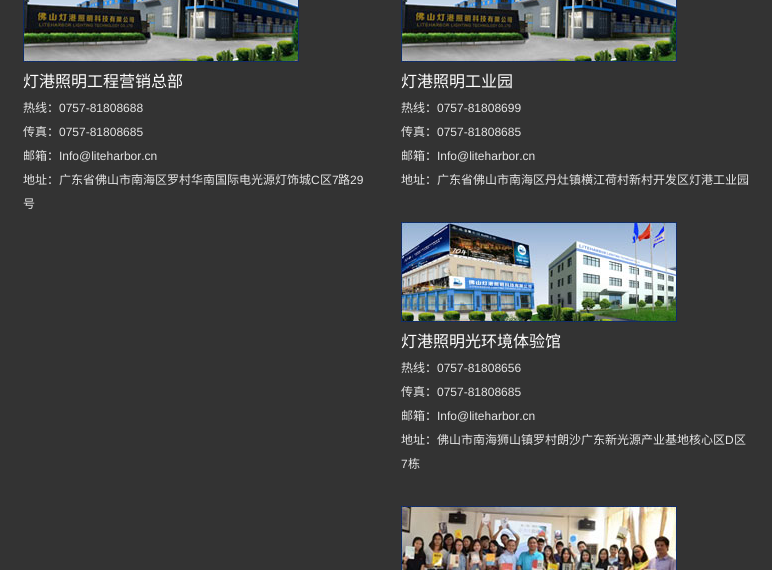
#include <cairo.h>
#include <math.h>
#include <stddef.h>

static cairo_t *ctx;

static void use_color(int r, int g, int b) {
    cairo_set_source_rgb(ctx, r / 255.0, g / 255.0, b / 255.0);
}

static void picture(const char *path, double x, double y, double w, double h) {
    cairo_surface_t *image = cairo_image_surface_create_from_png(path);
    cairo_save(ctx);
    cairo_set_source_surface(ctx, image, x, y);
    cairo_rectangle(ctx, x, y, w, h);
    cairo_fill(ctx);
    cairo_restore(ctx);
    cairo_surface_destroy(image);
}

int main(void) {
    cairo_surface_t *surface = cairo_image_surface_create(CAIRO_FORMAT_RGB24, 772, 570);
    ctx = cairo_create(surface);
    cairo_font_options_t *options = cairo_font_options_create();
    cairo_font_options_set_hint_metrics(options, CAIRO_HINT_METRICS_OFF);
    cairo_font_options_set_hint_style(options, CAIRO_HINT_STYLE_NONE);
    cairo_set_font_options(ctx, options);
    cairo_set_miter_limit(ctx, 4);
    use_color(51, 51, 51);
    cairo_paint(ctx);
    picture("img1.png", 23, 0, 276, 62);
    cairo_select_font_face(ctx, "Noto Sans CJK SC", CAIRO_FONT_SLANT_NORMAL, CAIRO_FONT_WEIGHT_NORMAL);
    cairo_set_font_size(ctx, 16);
    use_color(255, 255, 255);
    cairo_move_to(ctx, 23, 87);
    cairo_show_text(ctx, "灯港照明工程营销总部");
    cairo_set_font_size(ctx, 12);
    use_color(229, 229, 229);
    cairo_move_to(ctx, 23, 112);
    cairo_show_text(ctx, "热线：");
    cairo_select_font_face(ctx, "Liberation Sans", CAIRO_FONT_SLANT_NORMAL, CAIRO_FONT_WEIGHT_NORMAL);
    cairo_move_to(ctx, 59, 112);
    cairo_show_text(ctx, "0757-81808688");
    cairo_select_font_face(ctx, "Noto Sans CJK SC", CAIRO_FONT_SLANT_NORMAL, CAIRO_FONT_WEIGHT_NORMAL);
    cairo_move_to(ctx, 23, 136);
    cairo_show_text(ctx, "传真：");
    cairo_select_font_face(ctx, "Liberation Sans", CAIRO_FONT_SLANT_NORMAL, CAIRO_FONT_WEIGHT_NORMAL);
    cairo_move_to(ctx, 59, 136);
    cairo_show_text(ctx, "0757-81808685");
    cairo_select_font_face(ctx, "Noto Sans CJK SC", CAIRO_FONT_SLANT_NORMAL, CAIRO_FONT_WEIGHT_NORMAL);
    cairo_move_to(ctx, 23, 160);
    cairo_show_text(ctx, "邮箱：");
    cairo_select_font_face(ctx, "Liberation Sans", CAIRO_FONT_SLANT_NORMAL, CAIRO_FONT_WEIGHT_NORMAL);
    cairo_move_to(ctx, 59, 160);
    cairo_show_text(ctx, "Info@liteharbor.cn");
    cairo_select_font_face(ctx, "Noto Sans CJK SC", CAIRO_FONT_SLANT_NORMAL, CAIRO_FONT_WEIGHT_NORMAL);
    cairo_move_to(ctx, 23, 184);
    cairo_show_text(ctx, "地址：广东省佛山市南海区罗村华南国际电光源灯饰城");
    cairo_select_font_face(ctx, "Liberation Sans", CAIRO_FONT_SLANT_NORMAL, CAIRO_FONT_WEIGHT_NORMAL);
    cairo_move_to(ctx, 311, 184);
    cairo_show_text(ctx, "C");
    cairo_select_font_face(ctx, "Noto Sans CJK SC", CAIRO_FONT_SLANT_NORMAL, CAIRO_FONT_WEIGHT_NORMAL);
    cairo_move_to(ctx, 320, 184);
    cairo_show_text(ctx, "区");
    cairo_select_font_face(ctx, "Liberation Sans", CAIRO_FONT_SLANT_NORMAL, CAIRO_FONT_WEIGHT_NORMAL);
    cairo_move_to(ctx, 332, 184);
    cairo_show_text(ctx, "7");
    cairo_select_font_face(ctx, "Noto Sans CJK SC", CAIRO_FONT_SLANT_NORMAL, CAIRO_FONT_WEIGHT_NORMAL);
    cairo_move_to(ctx, 338, 184);
    cairo_show_text(ctx, "路");
    cairo_select_font_face(ctx, "Liberation Sans", CAIRO_FONT_SLANT_NORMAL, CAIRO_FONT_WEIGHT_NORMAL);
    cairo_move_to(ctx, 350, 184);
    cairo_show_text(ctx, "29");
    cairo_select_font_face(ctx, "Noto Sans CJK SC", CAIRO_FONT_SLANT_NORMAL, CAIRO_FONT_WEIGHT_NORMAL);
    cairo_move_to(ctx, 23, 208);
    cairo_show_text(ctx, "号");
    picture("img1.png", 401, 0, 276, 62);
    cairo_set_font_size(ctx, 16);
    use_color(255, 255, 255);
    cairo_move_to(ctx, 401, 87);
    cairo_show_text(ctx, "灯港照明工业园");
    cairo_set_font_size(ctx, 12);
    use_color(229, 229, 229);
    cairo_move_to(ctx, 401, 112);
    cairo_show_text(ctx, "热线：");
    cairo_select_font_face(ctx, "Liberation Sans", CAIRO_FONT_SLANT_NORMAL, CAIRO_FONT_WEIGHT_NORMAL);
    cairo_move_to(ctx, 437, 112);
    cairo_show_text(ctx, "0757-81808699");
    cairo_select_font_face(ctx, "Noto Sans CJK SC", CAIRO_FONT_SLANT_NORMAL, CAIRO_FONT_WEIGHT_NORMAL);
    cairo_move_to(ctx, 401, 136);
    cairo_show_text(ctx, "传真：");
    cairo_select_font_face(ctx, "Liberation Sans", CAIRO_FONT_SLANT_NORMAL, CAIRO_FONT_WEIGHT_NORMAL);
    cairo_move_to(ctx, 437, 136);
    cairo_show_text(ctx, "0757-81808685");
    cairo_select_font_face(ctx, "Noto Sans CJK SC", CAIRO_FONT_SLANT_NORMAL, CAIRO_FONT_WEIGHT_NORMAL);
    cairo_move_to(ctx, 401, 160);
    cairo_show_text(ctx, "邮箱：");
    cairo_select_font_face(ctx, "Liberation Sans", CAIRO_FONT_SLANT_NORMAL, CAIRO_FONT_WEIGHT_NORMAL);
    cairo_move_to(ctx, 437, 160);
    cairo_show_text(ctx, "Info@liteharbor.cn");
    cairo_select_font_face(ctx, "Noto Sans CJK SC", CAIRO_FONT_SLANT_NORMAL, CAIRO_FONT_WEIGHT_NORMAL);
    cairo_move_to(ctx, 401, 184);
    cairo_show_text(ctx, "地址：广东省佛山市南海区丹灶镇横江荷村新村开发区灯港工业园");
    picture("img2.png", 401, 222, 276, 100);
    cairo_set_font_size(ctx, 16);
    use_color(255, 255, 255);
    cairo_move_to(ctx, 401, 347);
    cairo_show_text(ctx, "灯港照明光环境体验馆");
    cairo_set_font_size(ctx, 12);
    use_color(229, 229, 229);
    cairo_move_to(ctx, 401, 372);
    cairo_show_text(ctx, "热线：");
    cairo_select_font_face(ctx, "Liberation Sans", CAIRO_FONT_SLANT_NORMAL, CAIRO_FONT_WEIGHT_NORMAL);
    cairo_move_to(ctx, 437, 372);
    cairo_show_text(ctx, "0757-81808656");
    cairo_select_font_face(ctx, "Noto Sans CJK SC", CAIRO_FONT_SLANT_NORMAL, CAIRO_FONT_WEIGHT_NORMAL);
    cairo_move_to(ctx, 401, 396);
    cairo_show_text(ctx, "传真：");
    cairo_select_font_face(ctx, "Liberation Sans", CAIRO_FONT_SLANT_NORMAL, CAIRO_FONT_WEIGHT_NORMAL);
    cairo_move_to(ctx, 437, 396);
    cairo_show_text(ctx, "0757-81808685");
    cairo_select_font_face(ctx, "Noto Sans CJK SC", CAIRO_FONT_SLANT_NORMAL, CAIRO_FONT_WEIGHT_NORMAL);
    cairo_move_to(ctx, 401, 420);
    cairo_show_text(ctx, "邮箱：");
    cairo_select_font_face(ctx, "Liberation Sans", CAIRO_FONT_SLANT_NORMAL, CAIRO_FONT_WEIGHT_NORMAL);
    cairo_move_to(ctx, 437, 420);
    cairo_show_text(ctx, "Info@liteharbor.cn");
    cairo_select_font_face(ctx, "Noto Sans CJK SC", CAIRO_FONT_SLANT_NORMAL, CAIRO_FONT_WEIGHT_NORMAL);
    cairo_move_to(ctx, 401, 444);
    cairo_show_text(ctx, "地址：佛山市南海狮山镇罗村朗沙广东新光源产业基地核心区");
    cairo_select_font_face(ctx, "Liberation Sans", CAIRO_FONT_SLANT_NORMAL, CAIRO_FONT_WEIGHT_NORMAL);
    cairo_move_to(ctx, 725, 444);
    cairo_show_text(ctx, "D");
    cairo_select_font_face(ctx, "Noto Sans CJK SC", CAIRO_FONT_SLANT_NORMAL, CAIRO_FONT_WEIGHT_NORMAL);
    cairo_move_to(ctx, 734, 444);
    cairo_show_text(ctx, "区");
    cairo_select_font_face(ctx, "Liberation Sans", CAIRO_FONT_SLANT_NORMAL, CAIRO_FONT_WEIGHT_NORMAL);
    cairo_move_to(ctx, 401, 468);
    cairo_show_text(ctx, "7");
    cairo_select_font_face(ctx, "Noto Sans CJK SC", CAIRO_FONT_SLANT_NORMAL, CAIRO_FONT_WEIGHT_NORMAL);
    cairo_move_to(ctx, 408, 468);
    cairo_show_text(ctx, "栋");
    picture("img3.png", 401, 506, 276, 64);
    cairo_surface_write_to_png(surface, "result.png");
    cairo_font_options_destroy(options);
    cairo_destroy(ctx);
    cairo_surface_destroy(surface);
    return 0;
}
